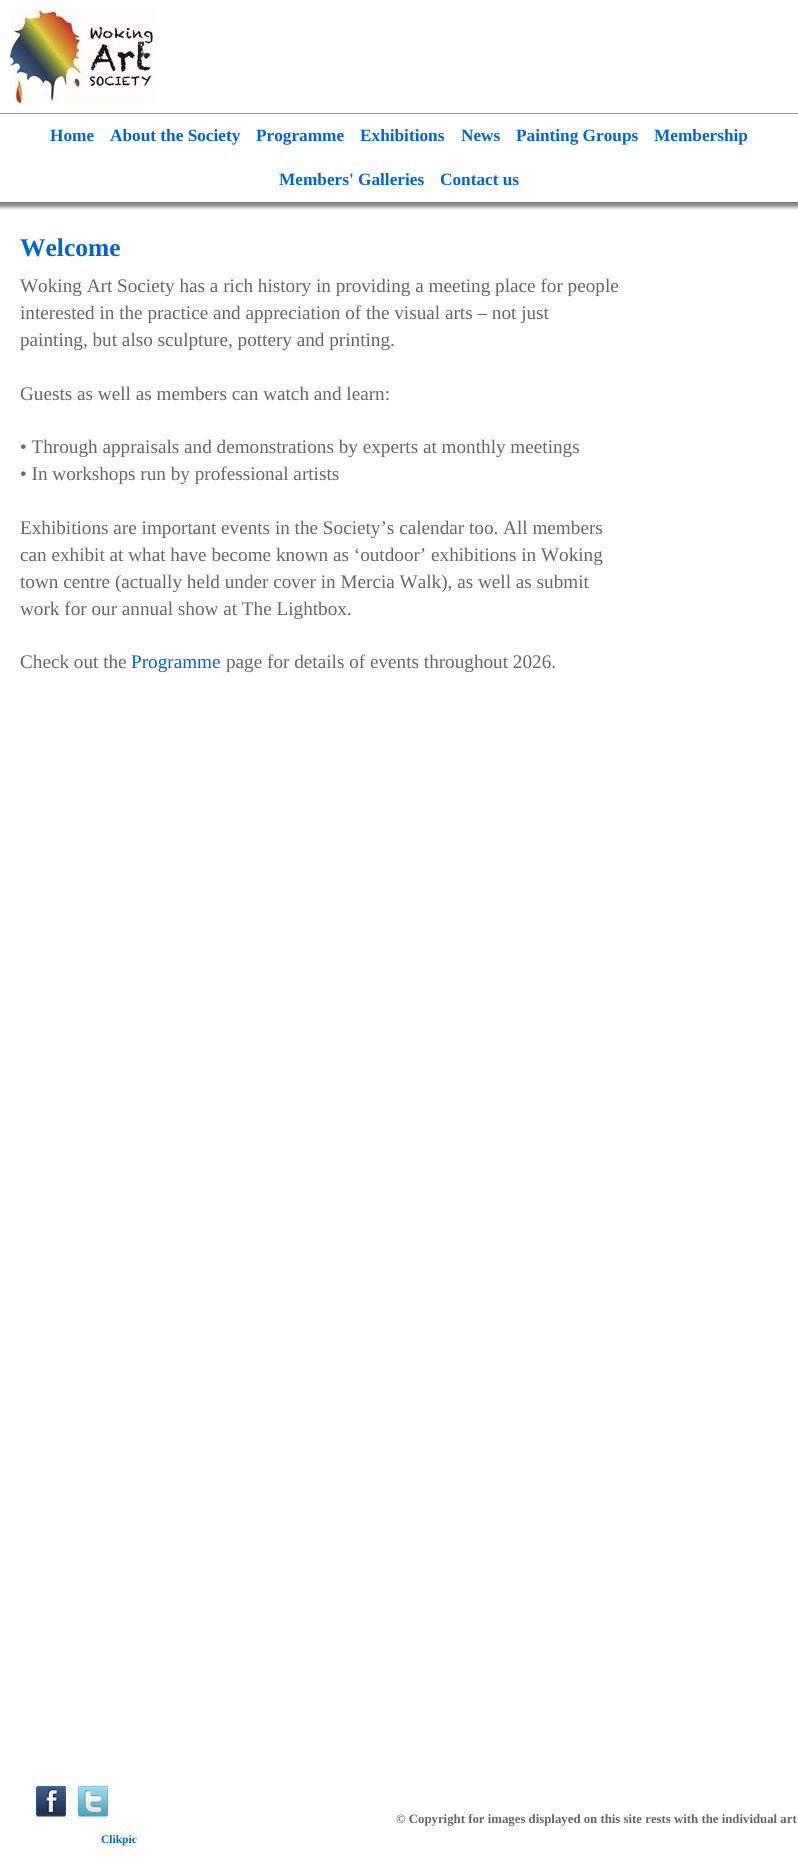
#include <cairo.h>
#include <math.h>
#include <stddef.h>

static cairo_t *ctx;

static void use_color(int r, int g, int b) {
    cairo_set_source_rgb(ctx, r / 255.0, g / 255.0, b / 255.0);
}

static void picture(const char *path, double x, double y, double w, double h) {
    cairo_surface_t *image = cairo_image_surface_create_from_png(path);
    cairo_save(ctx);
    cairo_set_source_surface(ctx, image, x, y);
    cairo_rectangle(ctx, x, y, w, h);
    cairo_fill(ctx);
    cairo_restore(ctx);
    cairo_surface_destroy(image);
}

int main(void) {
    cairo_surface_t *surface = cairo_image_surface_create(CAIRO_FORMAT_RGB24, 798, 1875);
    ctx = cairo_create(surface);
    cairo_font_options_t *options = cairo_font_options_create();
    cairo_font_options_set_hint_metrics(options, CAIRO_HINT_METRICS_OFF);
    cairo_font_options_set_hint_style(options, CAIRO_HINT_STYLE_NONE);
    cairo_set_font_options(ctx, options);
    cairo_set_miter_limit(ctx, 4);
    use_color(255, 255, 255);
    cairo_paint(ctx);
    use_color(154, 154, 154);
    cairo_rectangle(ctx, 0, 113, 798, 1);
    cairo_fill(ctx);
    picture("img1.png", 10, 9, 143, 95);
    cairo_select_font_face(ctx, "Liberation Serif", CAIRO_FONT_SLANT_NORMAL, CAIRO_FONT_WEIGHT_BOLD);
    cairo_set_font_size(ctx, 17.25);
    use_color(0, 101, 207);
    cairo_move_to(ctx, 50, 141);
    cairo_show_text(ctx, "Home");
    cairo_move_to(ctx, 110, 141);
    cairo_show_text(ctx, "About the Society");
    cairo_move_to(ctx, 256, 141);
    cairo_show_text(ctx, "Programme");
    cairo_move_to(ctx, 360, 141);
    cairo_show_text(ctx, "Exhibitions");
    cairo_move_to(ctx, 461, 141);
    cairo_show_text(ctx, "News");
    cairo_move_to(ctx, 516, 141);
    cairo_show_text(ctx, "Painting Groups");
    cairo_move_to(ctx, 654, 141);
    cairo_show_text(ctx, "Membership");
    cairo_move_to(ctx, 279, 185);
    cairo_show_text(ctx, "Members' Galleries");
    cairo_move_to(ctx, 440, 185);
    cairo_show_text(ctx, "Contact us");
    picture("img2.png", 0, 202, 798, 8);
    cairo_set_font_size(ctx, 25.5);
    cairo_move_to(ctx, 20, 256);
    cairo_show_text(ctx, "Welcome");
    cairo_select_font_face(ctx, "Liberation Serif", CAIRO_FONT_SLANT_NORMAL, CAIRO_FONT_WEIGHT_NORMAL);
    cairo_set_font_size(ctx, 19.2);
    use_color(102, 102, 102);
    cairo_move_to(ctx, 20, 292);
    cairo_show_text(ctx, "Woking Art Society has a rich history in providing a meeting place for people");
    cairo_move_to(ctx, 20, 319);
    cairo_show_text(ctx, "interested in the practice and appreciation of the visual arts – not just");
    cairo_move_to(ctx, 20, 346);
    cairo_show_text(ctx, "painting, but also sculpture, pottery and printing.");
    cairo_move_to(ctx, 20, 400);
    cairo_show_text(ctx, "Guests as well as members can watch and learn:");
    cairo_move_to(ctx, 20, 453);
    cairo_show_text(ctx, "• Through appraisals and demonstrations by experts at monthly meetings");
    cairo_move_to(ctx, 20, 480);
    cairo_show_text(ctx, "• In workshops run by professional artists");
    cairo_move_to(ctx, 20, 534);
    cairo_show_text(ctx, "Exhibitions are important events in the Society’s calendar too. All members");
    cairo_move_to(ctx, 20, 561);
    cairo_show_text(ctx, "can exhibit at what have become known as ‘outdoor’ exhibitions in Woking");
    cairo_move_to(ctx, 20, 588);
    cairo_show_text(ctx, "town centre (actually held under cover in Mercia Walk), as well as submit");
    cairo_move_to(ctx, 20, 615);
    cairo_show_text(ctx, "work for our annual show at The Lightbox.");
    cairo_move_to(ctx, 20, 668);
    cairo_show_text(ctx, "Check out the");
    use_color(0, 101, 207);
    cairo_move_to(ctx, 131, 668);
    cairo_show_text(ctx, "Programme");
    use_color(102, 102, 102);
    cairo_move_to(ctx, 226, 668);
    cairo_show_text(ctx, "page for details of events throughout 2026.");
    picture("img3.png", 36, 1786, 30, 31);
    picture("img4.png", 78, 1786, 30, 31);
    cairo_select_font_face(ctx, "Liberation Serif", CAIRO_FONT_SLANT_NORMAL, CAIRO_FONT_WEIGHT_BOLD);
    cairo_set_font_size(ctx, 12.8);
    cairo_move_to(ctx, 396, 1823);
    cairo_show_text(ctx, "© Copyright for images displayed on this site rests with the individual art");
    cairo_set_font_size(ctx, 11.5);
    use_color(0, 101, 207);
    cairo_move_to(ctx, 101, 1843);
    cairo_show_text(ctx, "Clikpic");
    cairo_surface_write_to_png(surface, "result.png");
    cairo_font_options_destroy(options);
    cairo_destroy(ctx);
    cairo_surface_destroy(surface);
    return 0;
}
